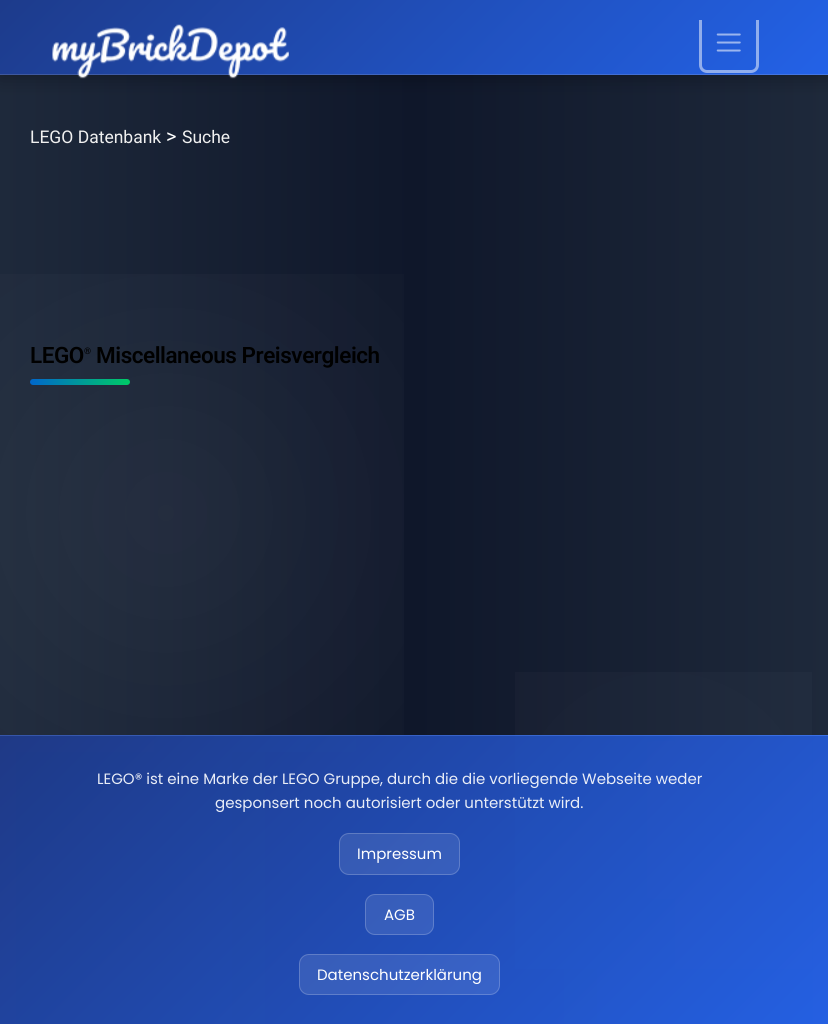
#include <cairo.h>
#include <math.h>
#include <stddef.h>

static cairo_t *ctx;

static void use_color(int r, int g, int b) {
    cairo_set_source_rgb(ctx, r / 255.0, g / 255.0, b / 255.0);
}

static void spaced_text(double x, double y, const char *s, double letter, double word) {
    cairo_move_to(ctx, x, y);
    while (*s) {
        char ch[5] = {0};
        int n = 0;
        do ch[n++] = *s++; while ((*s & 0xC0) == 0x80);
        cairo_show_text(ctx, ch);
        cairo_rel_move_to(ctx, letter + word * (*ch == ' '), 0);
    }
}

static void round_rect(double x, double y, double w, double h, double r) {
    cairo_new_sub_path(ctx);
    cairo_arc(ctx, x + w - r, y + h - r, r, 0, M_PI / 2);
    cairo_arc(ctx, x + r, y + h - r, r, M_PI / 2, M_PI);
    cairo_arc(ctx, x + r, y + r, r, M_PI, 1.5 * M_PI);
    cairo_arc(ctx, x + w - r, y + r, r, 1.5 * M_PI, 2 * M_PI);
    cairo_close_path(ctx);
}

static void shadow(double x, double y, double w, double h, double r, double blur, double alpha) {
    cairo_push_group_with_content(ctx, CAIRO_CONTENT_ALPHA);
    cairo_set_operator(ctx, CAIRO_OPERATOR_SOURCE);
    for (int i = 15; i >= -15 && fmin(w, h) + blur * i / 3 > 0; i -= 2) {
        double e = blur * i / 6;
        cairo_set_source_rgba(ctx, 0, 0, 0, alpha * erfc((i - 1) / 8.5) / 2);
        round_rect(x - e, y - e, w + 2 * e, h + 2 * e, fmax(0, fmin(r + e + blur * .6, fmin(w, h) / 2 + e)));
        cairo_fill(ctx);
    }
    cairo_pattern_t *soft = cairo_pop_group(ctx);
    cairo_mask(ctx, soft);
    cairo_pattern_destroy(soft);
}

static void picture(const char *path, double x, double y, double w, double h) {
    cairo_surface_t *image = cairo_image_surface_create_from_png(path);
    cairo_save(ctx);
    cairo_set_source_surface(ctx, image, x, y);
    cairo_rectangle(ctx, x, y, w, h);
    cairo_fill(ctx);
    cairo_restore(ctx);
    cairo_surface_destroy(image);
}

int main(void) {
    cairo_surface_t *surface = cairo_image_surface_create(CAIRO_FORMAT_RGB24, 828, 1024);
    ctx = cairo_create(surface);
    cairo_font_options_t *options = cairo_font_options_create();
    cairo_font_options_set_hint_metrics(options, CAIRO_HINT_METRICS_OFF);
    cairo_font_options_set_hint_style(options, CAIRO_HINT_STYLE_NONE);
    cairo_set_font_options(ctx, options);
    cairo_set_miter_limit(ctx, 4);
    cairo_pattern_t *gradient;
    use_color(255, 255, 255);
    cairo_paint(ctx);
    gradient = cairo_pattern_create_linear(0, 513, 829, 513);
    cairo_pattern_add_color_stop_rgba(gradient, 0, 0.118, 0.161, 0.231, 1);
    cairo_pattern_add_color_stop_rgba(gradient, 0.5, 0.059, 0.09, 0.165, 1);
    cairo_pattern_add_color_stop_rgba(gradient, 1, 0.118, 0.161, 0.231, 1);
    cairo_set_source(ctx, gradient);
    cairo_pattern_destroy(gradient);
    cairo_rectangle(ctx, 0, 75, 828, 949);
    cairo_fill(ctx);
    use_color(0, 0, 0);
    shadow(0, 3, 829, 75, 0, 9.5, 0.3);
    gradient = cairo_pattern_create_linear(189, -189, 640, 263);
    cairo_pattern_add_color_stop_rgba(gradient, 0, 0.114, 0.231, 0.545, 1);
    cairo_pattern_add_color_stop_rgba(gradient, 1, 0.137, 0.384, 0.906, 1);
    cairo_set_source(ctx, gradient);
    cairo_pattern_destroy(gradient);
    cairo_rectangle(ctx, 0, 0, 828, 74);
    cairo_fill(ctx);
    gradient = cairo_pattern_create_linear(189, -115, 640, 336);
    cairo_pattern_add_color_stop_rgba(gradient, 0, 0.114, 0.231, 0.545, 1);
    cairo_pattern_add_color_stop_rgba(gradient, 1, 0.137, 0.384, 0.906, 1);
    cairo_set_source(ctx, gradient);
    cairo_pattern_destroy(gradient);
    cairo_rectangle(ctx, 0, 74, 828, 1);
    cairo_fill(ctx);
    cairo_set_source_rgba(ctx, 1, 1, 1, 0.15);
    cairo_rectangle(ctx, 0, 74, 828, 1);
    cairo_fill(ctx);
    picture("img1.png", 52, 24, 237, 55);
    cairo_save(ctx);
    cairo_rectangle(ctx, 30, 20, 749, 63);
    cairo_clip(ctx);
    round_rect(700.5, 11.5, 57, 60, 6.5);
    cairo_set_source_rgba(ctx, 1, 1, 1, 0.5);
    cairo_set_line_width(ctx, 3);
    cairo_stroke(ctx);
    cairo_restore(ctx);
    picture("img2.png", 716, 33, 25, 19);
    cairo_select_font_face(ctx, "Roboto", CAIRO_FONT_SLANT_NORMAL, CAIRO_FONT_WEIGHT_NORMAL);
    cairo_set_font_size(ctx, 17.5);
    use_color(240, 240, 240);
    cairo_move_to(ctx, 30, 143);
    cairo_show_text(ctx, "LEGO Datenbank");
    cairo_set_font_size(ctx, 20);
    use_color(255, 255, 255);
    cairo_move_to(ctx, 166, 143);
    cairo_show_text(ctx, ">");
    cairo_set_font_size(ctx, 17.5);
    use_color(240, 240, 240);
    cairo_move_to(ctx, 182, 143);
    cairo_show_text(ctx, "Suche");
    gradient = cairo_pattern_create_radial(166, 513, 0, 166, 513, 838);
    cairo_pattern_add_color_stop_rgba(gradient, 0, 1, 1, 1, 0.05);
    cairo_pattern_add_color_stop_rgba(gradient, 0.5, 1, 1, 1, 0);
    cairo_set_source(ctx, gradient);
    cairo_pattern_destroy(gradient);
    cairo_rectangle(ctx, 0, 274, 404, 478);
    cairo_fill(ctx);
    cairo_select_font_face(ctx, "Roboto SemiBold", CAIRO_FONT_SLANT_NORMAL, CAIRO_FONT_WEIGHT_NORMAL);
    cairo_set_font_size(ctx, 22.5);
    use_color(0, 0, 0);
    spaced_text(30, 363, "LEGO", -0.45, 0);
    cairo_set_font_size(ctx, 9);
    spaced_text(84, 354, "®", -0.45, 0);
    cairo_set_font_size(ctx, 22.5);
    spaced_text(96, 363, "Miscellaneous Preisvergleich", -0.45, 0);
    gradient = cairo_pattern_create_linear(30, 382, 130, 382);
    cairo_pattern_add_color_stop_rgba(gradient, 0, 0, 0.4, 0.8, 1);
    cairo_pattern_add_color_stop_rgba(gradient, 1, 0, 0.8, 0.4, 1);
    cairo_set_source(ctx, gradient);
    cairo_pattern_destroy(gradient);
    round_rect(30, 379, 100, 6, 3);
    cairo_fill(ctx);
    gradient = cairo_pattern_create_radial(663, 820, 0, 663, 820, 1054);
    cairo_pattern_add_color_stop_rgba(gradient, 0, 1, 1, 1, 0.03);
    cairo_pattern_add_color_stop_rgba(gradient, 0.5, 1, 1, 1, 0);
    cairo_set_source(ctx, gradient);
    cairo_pattern_destroy(gradient);
    cairo_rectangle(ctx, 515, 672, 297, 297);
    cairo_fill(ctx);
    gradient = cairo_pattern_create_linear(135, 313, 694, 871);
    cairo_pattern_add_color_stop_rgba(gradient, 0, 0.118, 0.227, 0.541, 0.95);
    cairo_pattern_add_color_stop_rgba(gradient, 1, 0.145, 0.388, 0.922, 0.95);
    cairo_set_source(ctx, gradient);
    cairo_pattern_destroy(gradient);
    cairo_rectangle(ctx, 0, 735, 828, 1);
    cairo_fill(ctx);
    gradient = cairo_pattern_create_linear(135, 601, 694, 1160);
    cairo_pattern_add_color_stop_rgba(gradient, 0, 0.118, 0.227, 0.541, 0.95);
    cairo_pattern_add_color_stop_rgba(gradient, 1, 0.145, 0.388, 0.922, 0.95);
    cairo_set_source(ctx, gradient);
    cairo_pattern_destroy(gradient);
    cairo_rectangle(ctx, 0, 736, 828, 288);
    cairo_fill(ctx);
    cairo_set_source_rgba(ctx, 1, 1, 1, 0.1);
    cairo_rectangle(ctx, 0, 735, 828, 1);
    cairo_fill(ctx);
    cairo_select_font_face(ctx, "Poppins", CAIRO_FONT_SLANT_NORMAL, CAIRO_FONT_WEIGHT_NORMAL);
    cairo_set_font_size(ctx, 15);
    use_color(233, 237, 247);
    cairo_move_to(ctx, 97, 784);
    cairo_show_text(ctx, "LEGO® ist eine Marke der LEGO Gruppe, durch die die vorliegende Webseite weder");
    cairo_move_to(ctx, 215, 808);
    cairo_show_text(ctx, "gesponsert noch autorisiert oder unterstützt wird.");
    cairo_set_source_rgba(ctx, 1, 1, 1, 0.1);
    round_rect(339, 833, 121, 42, 10);
    cairo_fill(ctx);
    round_rect(339.5, 833.5, 120, 41, 9.5);
    cairo_set_source_rgba(ctx, 1, 1, 1, 0.2);
    cairo_set_line_width(ctx, 1);
    cairo_stroke(ctx);
    use_color(255, 255, 255);
    cairo_move_to(ctx, 357, 859);
    cairo_show_text(ctx, "Impressum");
    cairo_set_source_rgba(ctx, 1, 1, 1, 0.1);
    round_rect(365, 894, 69, 41, 10);
    cairo_fill(ctx);
    round_rect(365.5, 894.5, 68, 40, 9.5);
    cairo_set_source_rgba(ctx, 1, 1, 1, 0.2);
    cairo_stroke(ctx);
    use_color(255, 255, 255);
    cairo_move_to(ctx, 384, 920);
    cairo_show_text(ctx, "AGB");
    cairo_set_source_rgba(ctx, 1, 1, 1, 0.1);
    round_rect(299, 954, 201, 41, 10);
    cairo_fill(ctx);
    round_rect(299.5, 954.5, 200, 40, 9.5);
    cairo_set_source_rgba(ctx, 1, 1, 1, 0.2);
    cairo_stroke(ctx);
    use_color(255, 255, 255);
    cairo_move_to(ctx, 317, 980);
    cairo_show_text(ctx, "Datenschutzerklärung");
    cairo_surface_write_to_png(surface, "result.png");
    cairo_font_options_destroy(options);
    cairo_destroy(ctx);
    cairo_surface_destroy(surface);
    return 0;
}
